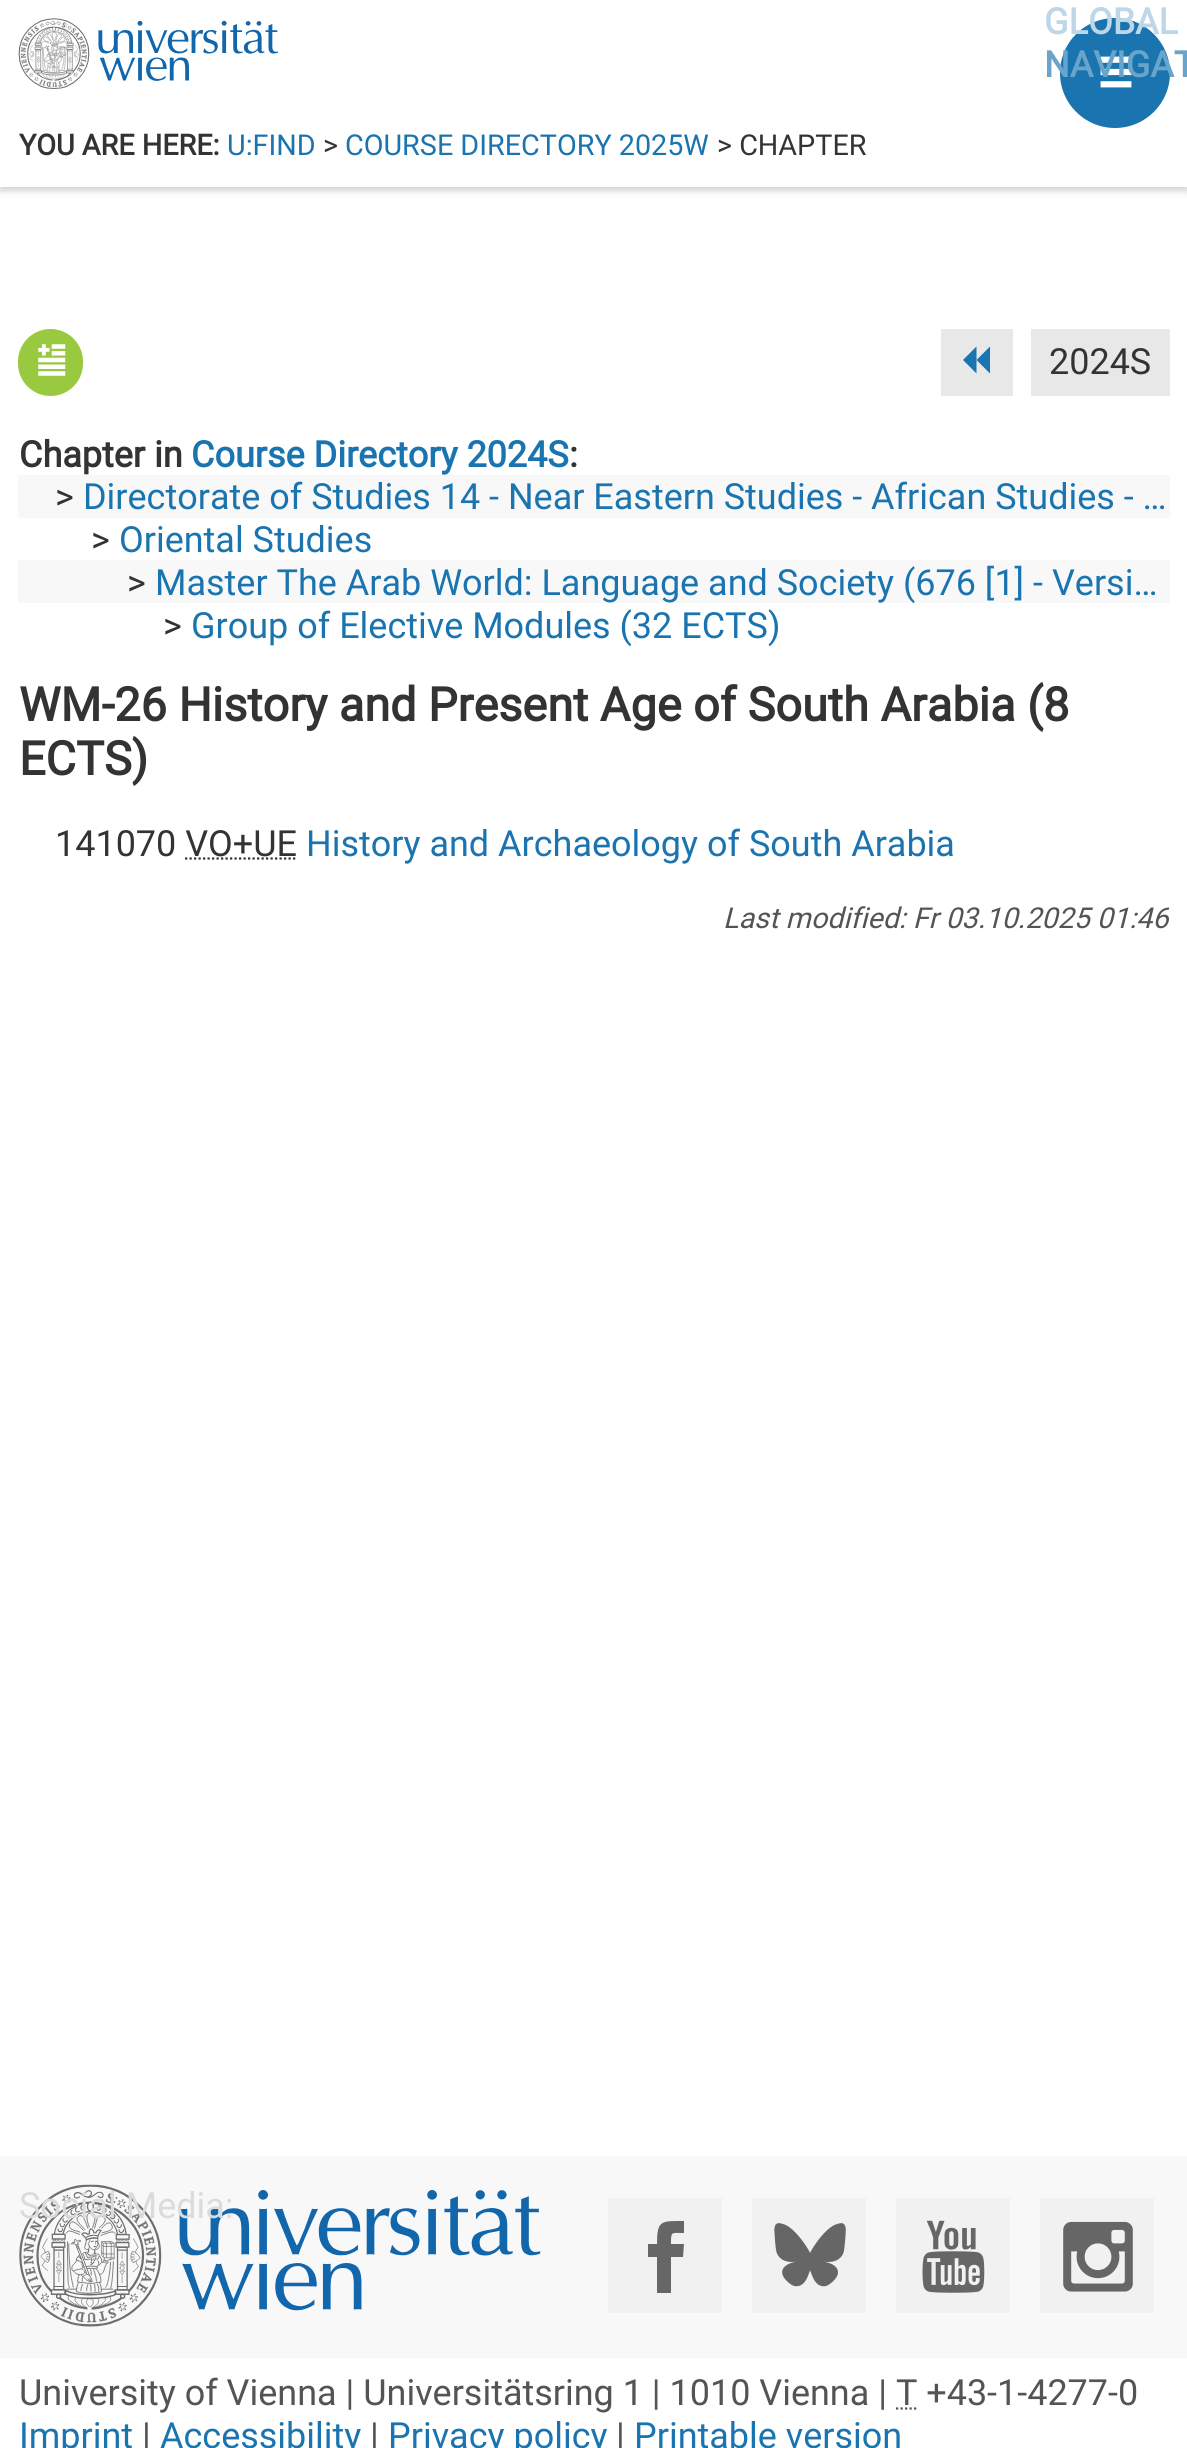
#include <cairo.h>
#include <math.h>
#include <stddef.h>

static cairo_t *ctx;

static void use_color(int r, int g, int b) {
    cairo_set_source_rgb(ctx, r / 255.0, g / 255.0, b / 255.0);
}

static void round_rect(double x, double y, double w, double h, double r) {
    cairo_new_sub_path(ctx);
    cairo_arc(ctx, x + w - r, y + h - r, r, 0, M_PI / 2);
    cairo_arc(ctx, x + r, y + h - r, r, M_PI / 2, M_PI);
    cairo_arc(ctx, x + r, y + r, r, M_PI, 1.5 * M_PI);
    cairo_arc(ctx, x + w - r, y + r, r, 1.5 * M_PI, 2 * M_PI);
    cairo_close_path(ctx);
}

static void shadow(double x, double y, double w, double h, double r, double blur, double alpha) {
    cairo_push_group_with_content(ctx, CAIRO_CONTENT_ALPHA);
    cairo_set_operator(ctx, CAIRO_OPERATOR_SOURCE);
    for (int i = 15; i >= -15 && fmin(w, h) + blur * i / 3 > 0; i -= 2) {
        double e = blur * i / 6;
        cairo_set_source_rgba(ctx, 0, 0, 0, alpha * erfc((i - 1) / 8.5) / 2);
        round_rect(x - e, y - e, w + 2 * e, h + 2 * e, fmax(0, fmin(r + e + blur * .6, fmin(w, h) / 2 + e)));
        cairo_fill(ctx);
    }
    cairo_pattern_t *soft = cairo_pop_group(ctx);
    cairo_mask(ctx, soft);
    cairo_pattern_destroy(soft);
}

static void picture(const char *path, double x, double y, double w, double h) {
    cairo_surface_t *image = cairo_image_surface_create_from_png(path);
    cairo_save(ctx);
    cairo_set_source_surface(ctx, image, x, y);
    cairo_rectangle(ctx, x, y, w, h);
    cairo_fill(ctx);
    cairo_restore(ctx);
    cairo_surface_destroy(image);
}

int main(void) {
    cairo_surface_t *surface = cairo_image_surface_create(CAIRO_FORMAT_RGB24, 1187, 2448);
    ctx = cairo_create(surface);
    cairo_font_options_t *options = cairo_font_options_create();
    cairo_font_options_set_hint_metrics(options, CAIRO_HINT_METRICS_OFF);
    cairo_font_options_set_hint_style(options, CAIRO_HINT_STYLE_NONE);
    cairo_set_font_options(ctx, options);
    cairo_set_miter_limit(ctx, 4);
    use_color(255, 255, 255);
    cairo_paint(ctx);
    use_color(0, 0, 0);
    shadow(0, 5, 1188, 186, 0, 3.5, 0.18);
    use_color(255, 255, 255);
    cairo_rectangle(ctx, 0, 0, 1187, 187);
    cairo_fill(ctx);
    picture("img1.png", 18, 18, 260, 71);
    use_color(26, 116, 176);
    cairo_arc(ctx, 1115, 73, 64, 0, 2 * M_PI);
    cairo_fill_preserve(ctx);
    use_color(255, 255, 255);
    cairo_set_line_width(ctx, 18);
    cairo_stroke(ctx);
    picture("img2.png", 1100, 56, 32, 32);
    cairo_select_font_face(ctx, "Roboto", CAIRO_FONT_SLANT_NORMAL, CAIRO_FONT_WEIGHT_BOLD);
    cairo_set_font_size(ctx, 36);
    use_color(189, 215, 232);
    cairo_move_to(ctx, 1044, 34);
    cairo_show_text(ctx, "GLOBAL");
    use_color(105, 164, 203);
    cairo_move_to(ctx, 1044, 77);
    cairo_show_text(ctx, "NAVIGAT");
    cairo_set_font_size(ctx, 28.75);
    use_color(51, 51, 51);
    cairo_move_to(ctx, 19, 155);
    cairo_show_text(ctx, "YOU ARE HERE:");
    cairo_select_font_face(ctx, "Roboto", CAIRO_FONT_SLANT_NORMAL, CAIRO_FONT_WEIGHT_NORMAL);
    use_color(26, 116, 176);
    cairo_move_to(ctx, 227, 155);
    cairo_show_text(ctx, "U:FIND");
    use_color(51, 51, 51);
    cairo_move_to(ctx, 323, 155);
    cairo_show_text(ctx, ">");
    use_color(26, 116, 176);
    cairo_move_to(ctx, 345, 155);
    cairo_show_text(ctx, "COURSE DIRECTORY 2025W");
    use_color(51, 51, 51);
    cairo_move_to(ctx, 717, 155);
    cairo_show_text(ctx, "> CHAPTER");
    use_color(153, 201, 62);
    round_rect(18, 329, 65, 67, 32.5);
    cairo_fill(ctx);
    picture("img3.png", 38, 344, 28, 32);
    use_color(232, 232, 232);
    cairo_rectangle(ctx, 941, 329, 72, 67);
    cairo_fill(ctx);
    use_color(26, 116, 176);
    cairo_new_path(ctx);
    cairo_move_to(ctx, 976.5, 346.5);
    cairo_line_to(ctx, 976.5, 373.5);
    cairo_line_to(ctx, 963, 360);
    cairo_close_path(ctx);
    cairo_move_to(ctx, 990, 346.5);
    cairo_line_to(ctx, 990, 373.5);
    cairo_line_to(ctx, 976.5, 360);
    cairo_close_path(ctx);
    cairo_fill(ctx);
    use_color(232, 232, 232);
    cairo_rectangle(ctx, 1031, 329, 139, 67);
    cairo_fill(ctx);
    cairo_set_font_size(ctx, 36);
    use_color(51, 51, 51);
    cairo_move_to(ctx, 1049, 374);
    cairo_show_text(ctx, "2024S");
    cairo_select_font_face(ctx, "Roboto", CAIRO_FONT_SLANT_NORMAL, CAIRO_FONT_WEIGHT_BOLD);
    cairo_move_to(ctx, 19, 467);
    cairo_show_text(ctx, "Chapter in");
    use_color(26, 116, 176);
    cairo_move_to(ctx, 191, 467);
    cairo_show_text(ctx, "Course Directory 2024S");
    use_color(51, 51, 51);
    cairo_move_to(ctx, 569, 467);
    cairo_show_text(ctx, ":");
    use_color(248, 248, 248);
    cairo_rectangle(ctx, 18, 475, 1152, 43);
    cairo_fill(ctx);
    cairo_select_font_face(ctx, "Roboto", CAIRO_FONT_SLANT_NORMAL, CAIRO_FONT_WEIGHT_NORMAL);
    use_color(51, 51, 51);
    cairo_move_to(ctx, 55, 509);
    cairo_show_text(ctx, ">");
    use_color(26, 116, 176);
    cairo_move_to(ctx, 83, 509);
    cairo_show_text(ctx, "Directorate of Studies 14 - Near Eastern Studies - African Studies - …");
    use_color(51, 51, 51);
    cairo_move_to(ctx, 91, 552);
    cairo_show_text(ctx, ">");
    use_color(26, 116, 176);
    cairo_move_to(ctx, 119, 552);
    cairo_show_text(ctx, "Oriental Studies");
    use_color(248, 248, 248);
    cairo_rectangle(ctx, 18, 560, 1152, 43);
    cairo_fill(ctx);
    use_color(51, 51, 51);
    cairo_move_to(ctx, 127, 595);
    cairo_show_text(ctx, ">");
    use_color(26, 116, 176);
    cairo_move_to(ctx, 155, 595);
    cairo_show_text(ctx, "Master The Arab World: Language and Society (676 [1] - Versi…");
    use_color(51, 51, 51);
    cairo_move_to(ctx, 163, 638);
    cairo_show_text(ctx, ">");
    use_color(26, 116, 176);
    cairo_move_to(ctx, 191, 638);
    cairo_show_text(ctx, "Group of Elective Modules (32 ECTS)");
    cairo_select_font_face(ctx, "Roboto", CAIRO_FONT_SLANT_NORMAL, CAIRO_FONT_WEIGHT_BOLD);
    cairo_set_font_size(ctx, 46.8);
    use_color(51, 51, 51);
    cairo_move_to(ctx, 19, 721);
    cairo_show_text(ctx, "WM-26 History and Present Age of South Arabia (8");
    cairo_move_to(ctx, 19, 775);
    cairo_show_text(ctx, "ECTS)");
    cairo_select_font_face(ctx, "Roboto", CAIRO_FONT_SLANT_NORMAL, CAIRO_FONT_WEIGHT_NORMAL);
    cairo_set_font_size(ctx, 36);
    cairo_move_to(ctx, 55, 856);
    cairo_show_text(ctx, "141070 VO+UE");
    use_color(26, 116, 176);
    cairo_move_to(ctx, 306, 856);
    cairo_show_text(ctx, "History and Archaeology of South Arabia");
    cairo_new_path(ctx);
    cairo_move_to(ctx, 185, 858.5);
    cairo_line_to(ctx, 297, 858.5);
    use_color(51, 51, 51);
    cairo_set_line_width(ctx, 2.2);
    cairo_set_dash(ctx, (double[]){2.25, 2.25}, 2, 0);
    cairo_stroke(ctx);
    cairo_select_font_face(ctx, "Roboto", CAIRO_FONT_SLANT_ITALIC, CAIRO_FONT_WEIGHT_NORMAL);
    cairo_set_font_size(ctx, 28.75);
    use_color(84, 84, 84);
    cairo_move_to(ctx, 723, 928);
    cairo_show_text(ctx, "Last modified: Fr 03.10.2025 01:46");
    use_color(248, 248, 248);
    cairo_rectangle(ctx, 0, 2156, 1187, 202);
    cairo_fill(ctx);
    picture("img4.png", 19, 2184, 522, 143);
    cairo_select_font_face(ctx, "Roboto", CAIRO_FONT_SLANT_NORMAL, CAIRO_FONT_WEIGHT_NORMAL);
    cairo_set_font_size(ctx, 36);
    use_color(217, 220, 223);
    cairo_move_to(ctx, 19, 2218);
    cairo_show_text(ctx, "Social Media:");
    use_color(241, 241, 241);
    cairo_rectangle(ctx, 608, 2198, 114, 115);
    cairo_fill(ctx);
    use_color(102, 102, 102);
    cairo_new_path(ctx);
    cairo_move_to(ctx, 671, 2244);
    cairo_curve_to(ctx, 671, 2231, 671, 2233, 684, 2233);
    cairo_line_to(ctx, 684, 2221);
    cairo_curve_to(ctx, 661, 2221, 657, 2220, 657, 2244);
    cairo_line_to(ctx, 648, 2244);
    cairo_line_to(ctx, 648, 2257);
    cairo_line_to(ctx, 657, 2257);
    cairo_line_to(ctx, 657, 2293);
    cairo_line_to(ctx, 671, 2293);
    cairo_line_to(ctx, 671, 2257);
    cairo_line_to(ctx, 683, 2257);
    cairo_line_to(ctx, 684, 2244);
    cairo_close_path(ctx);
    cairo_fill(ctx);
    use_color(241, 241, 241);
    cairo_rectangle(ctx, 752, 2198, 114, 115);
    cairo_fill(ctx);
    picture("img5.png", 774, 2223, 72, 64);
    cairo_rectangle(ctx, 896, 2198, 114, 115);
    cairo_fill(ctx);
    picture("img6.png", 922, 2220, 63, 73);
    cairo_rectangle(ctx, 1040, 2198, 114, 115);
    cairo_fill(ctx);
    picture("img7.png", 1063, 2221, 70, 71);
    use_color(84, 84, 84);
    cairo_move_to(ctx, 19, 2405);
    cairo_show_text(ctx, "University of Vienna | Universitätsring 1 | 1010 Vienna | T +43-1-4277-0");
    cairo_new_path(ctx);
    cairo_move_to(ctx, 896, 2408.5);
    cairo_line_to(ctx, 917.5, 2408.5);
    cairo_stroke(ctx);
    use_color(26, 116, 176);
    cairo_move_to(ctx, 19, 2448);
    cairo_show_text(ctx, "Imprint");
    use_color(84, 84, 84);
    cairo_move_to(ctx, 142, 2448);
    cairo_show_text(ctx, "|");
    use_color(26, 116, 176);
    cairo_move_to(ctx, 160, 2448);
    cairo_show_text(ctx, "Accessibility");
    use_color(84, 84, 84);
    cairo_move_to(ctx, 370, 2448);
    cairo_show_text(ctx, "|");
    use_color(26, 116, 176);
    cairo_move_to(ctx, 388, 2448);
    cairo_show_text(ctx, "Privacy policy");
    use_color(84, 84, 84);
    cairo_move_to(ctx, 616, 2448);
    cairo_show_text(ctx, "|");
    use_color(26, 116, 176);
    cairo_move_to(ctx, 634, 2448);
    cairo_show_text(ctx, "Printable version");
    cairo_surface_write_to_png(surface, "result.png");
    cairo_font_options_destroy(options);
    cairo_destroy(ctx);
    cairo_surface_destroy(surface);
    return 0;
}
